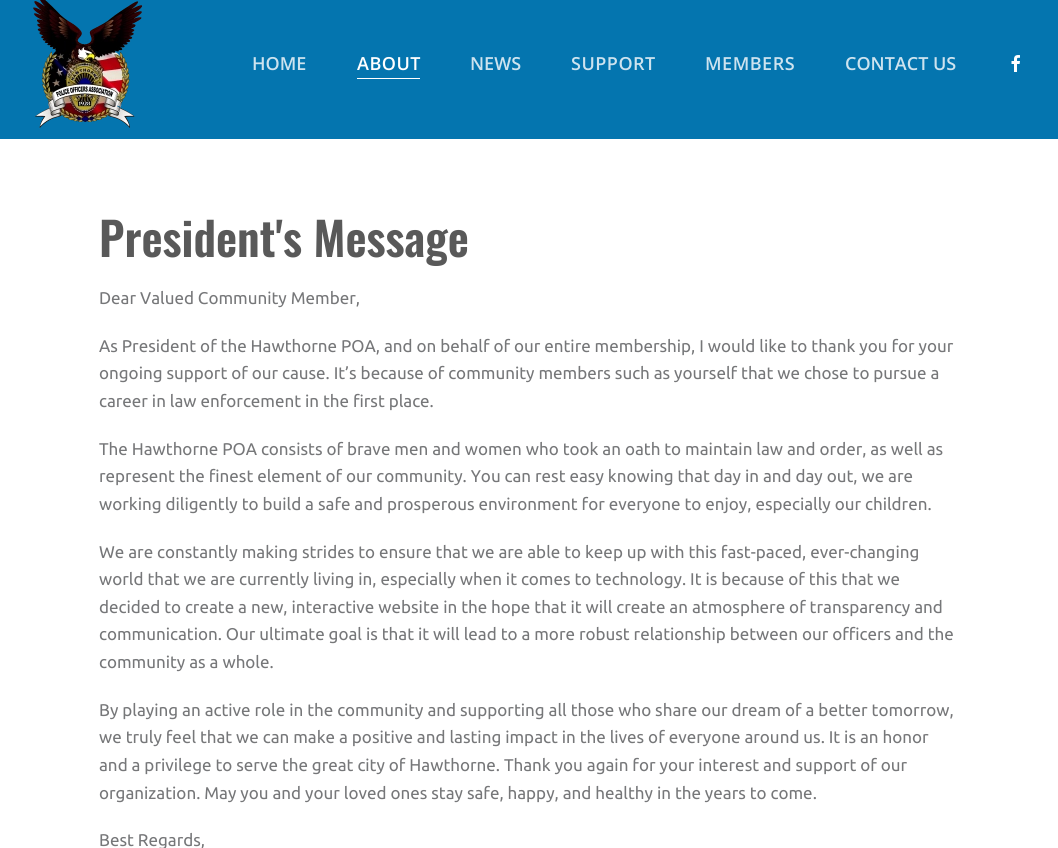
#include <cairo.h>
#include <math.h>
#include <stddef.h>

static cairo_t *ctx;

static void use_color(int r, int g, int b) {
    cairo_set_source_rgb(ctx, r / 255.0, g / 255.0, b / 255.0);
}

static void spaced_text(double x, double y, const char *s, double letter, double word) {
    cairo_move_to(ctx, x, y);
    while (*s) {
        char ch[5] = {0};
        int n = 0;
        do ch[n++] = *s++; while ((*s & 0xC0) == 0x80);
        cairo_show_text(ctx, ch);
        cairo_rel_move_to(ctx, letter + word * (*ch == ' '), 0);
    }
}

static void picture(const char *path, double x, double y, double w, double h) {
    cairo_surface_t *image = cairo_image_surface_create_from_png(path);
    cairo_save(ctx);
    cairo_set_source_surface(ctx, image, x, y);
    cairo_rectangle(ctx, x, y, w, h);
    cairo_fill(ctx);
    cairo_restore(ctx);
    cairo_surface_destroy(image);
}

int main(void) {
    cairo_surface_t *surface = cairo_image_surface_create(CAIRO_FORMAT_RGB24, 1058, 848);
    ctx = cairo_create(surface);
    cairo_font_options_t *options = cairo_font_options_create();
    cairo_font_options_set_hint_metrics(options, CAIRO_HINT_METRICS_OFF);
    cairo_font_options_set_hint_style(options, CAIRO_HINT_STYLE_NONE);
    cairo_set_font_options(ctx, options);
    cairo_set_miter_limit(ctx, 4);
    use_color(255, 255, 255);
    cairo_paint(ctx);
    use_color(4, 117, 175);
    cairo_rectangle(ctx, 0, 0, 1058, 139);
    cairo_fill(ctx);
    picture("img1.png", 33, 0, 110, 129);
    cairo_select_font_face(ctx, "Open Sans SemiBold", CAIRO_FONT_SLANT_NORMAL, CAIRO_FONT_WEIGHT_NORMAL);
    cairo_set_font_size(ctx, 18);
    use_color(205, 227, 239);
    cairo_move_to(ctx, 252, 70);
    cairo_show_text(ctx, "HOME");
    use_color(255, 255, 255);
    spaced_text(357, 70, "ABOUT", 0.5, 0);
    cairo_rectangle(ctx, 357, 78, 63, 1);
    cairo_fill(ctx);
    use_color(205, 227, 239);
    cairo_move_to(ctx, 470, 70);
    cairo_show_text(ctx, "NEWS");
    spaced_text(571, 70, "SUPPORT", 0.5, 0);
    spaced_text(705, 70, "MEMBERS", 0.5, 0);
    cairo_move_to(ctx, 845, 70);
    cairo_show_text(ctx, "CONTACT US");
    picture("img2.png", 1011, 55, 9, 17);
    cairo_select_font_face(ctx, "Oswald SemiBold", CAIRO_FONT_SLANT_NORMAL, CAIRO_FONT_WEIGHT_NORMAL);
    cairo_set_font_size(ctx, 46);
    use_color(89, 89, 89);
    cairo_move_to(ctx, 99, 257);
    cairo_show_text(ctx, "President's Message");
    cairo_select_font_face(ctx, "Ubuntu", CAIRO_FONT_SLANT_NORMAL, CAIRO_FONT_WEIGHT_NORMAL);
    cairo_set_font_size(ctx, 17);
    use_color(118, 119, 121);
    cairo_move_to(ctx, 99, 304);
    cairo_show_text(ctx, "Dear Valued Community Member,");
    cairo_move_to(ctx, 99, 352);
    cairo_show_text(ctx, "As President of the Hawthorne POA, and on behalf of our entire membership, I would like to thank you for your");
    cairo_move_to(ctx, 99, 379);
    cairo_show_text(ctx, "ongoing support of our cause. It’s because of community members such as yourself that we chose to pursue a");
    cairo_move_to(ctx, 99, 407);
    cairo_show_text(ctx, "career in law enforcement in the first place.");
    cairo_move_to(ctx, 99, 455);
    cairo_show_text(ctx, "The Hawthorne POA consists of brave men and women who took an oath to maintain law and order, as well as");
    cairo_move_to(ctx, 99, 482);
    cairo_show_text(ctx, "represent the finest element of our community. You can rest easy knowing that day in and day out, we are");
    cairo_move_to(ctx, 99, 510);
    cairo_show_text(ctx, "working diligently to build a safe and prosperous environment for everyone to enjoy, especially our children.");
    cairo_move_to(ctx, 99, 558);
    cairo_show_text(ctx, "We are constantly making strides to ensure that we are able to keep up with this fast-paced, ever-changing");
    cairo_move_to(ctx, 99, 585);
    cairo_show_text(ctx, "world that we are currently living in, especially when it comes to technology. It is because of this that we");
    cairo_move_to(ctx, 99, 613);
    cairo_show_text(ctx, "decided to create a new, interactive website in the hope that it will create an atmosphere of transparency and");
    cairo_move_to(ctx, 99, 640);
    cairo_show_text(ctx, "communication. Our ultimate goal is that it will lead to a more robust relationship between our officers and the");
    cairo_move_to(ctx, 99, 668);
    cairo_show_text(ctx, "community as a whole.");
    cairo_move_to(ctx, 99, 716);
    cairo_show_text(ctx, "By playing an active role in the community and supporting all those who share our dream of a better tomorrow,");
    cairo_move_to(ctx, 99, 743);
    cairo_show_text(ctx, "we truly feel that we can make a positive and lasting impact in the lives of everyone around us. It is an honor");
    cairo_move_to(ctx, 99, 771);
    cairo_show_text(ctx, "and a privilege to serve the great city of Hawthorne. Thank you again for your interest and support of our");
    cairo_move_to(ctx, 99, 799);
    cairo_show_text(ctx, "organization. May you and your loved ones stay safe, happy, and healthy in the years to come.");
    cairo_move_to(ctx, 99, 846);
    cairo_show_text(ctx, "Best Regards,");
    cairo_surface_write_to_png(surface, "result.png");
    cairo_font_options_destroy(options);
    cairo_destroy(ctx);
    cairo_surface_destroy(surface);
    return 0;
}
